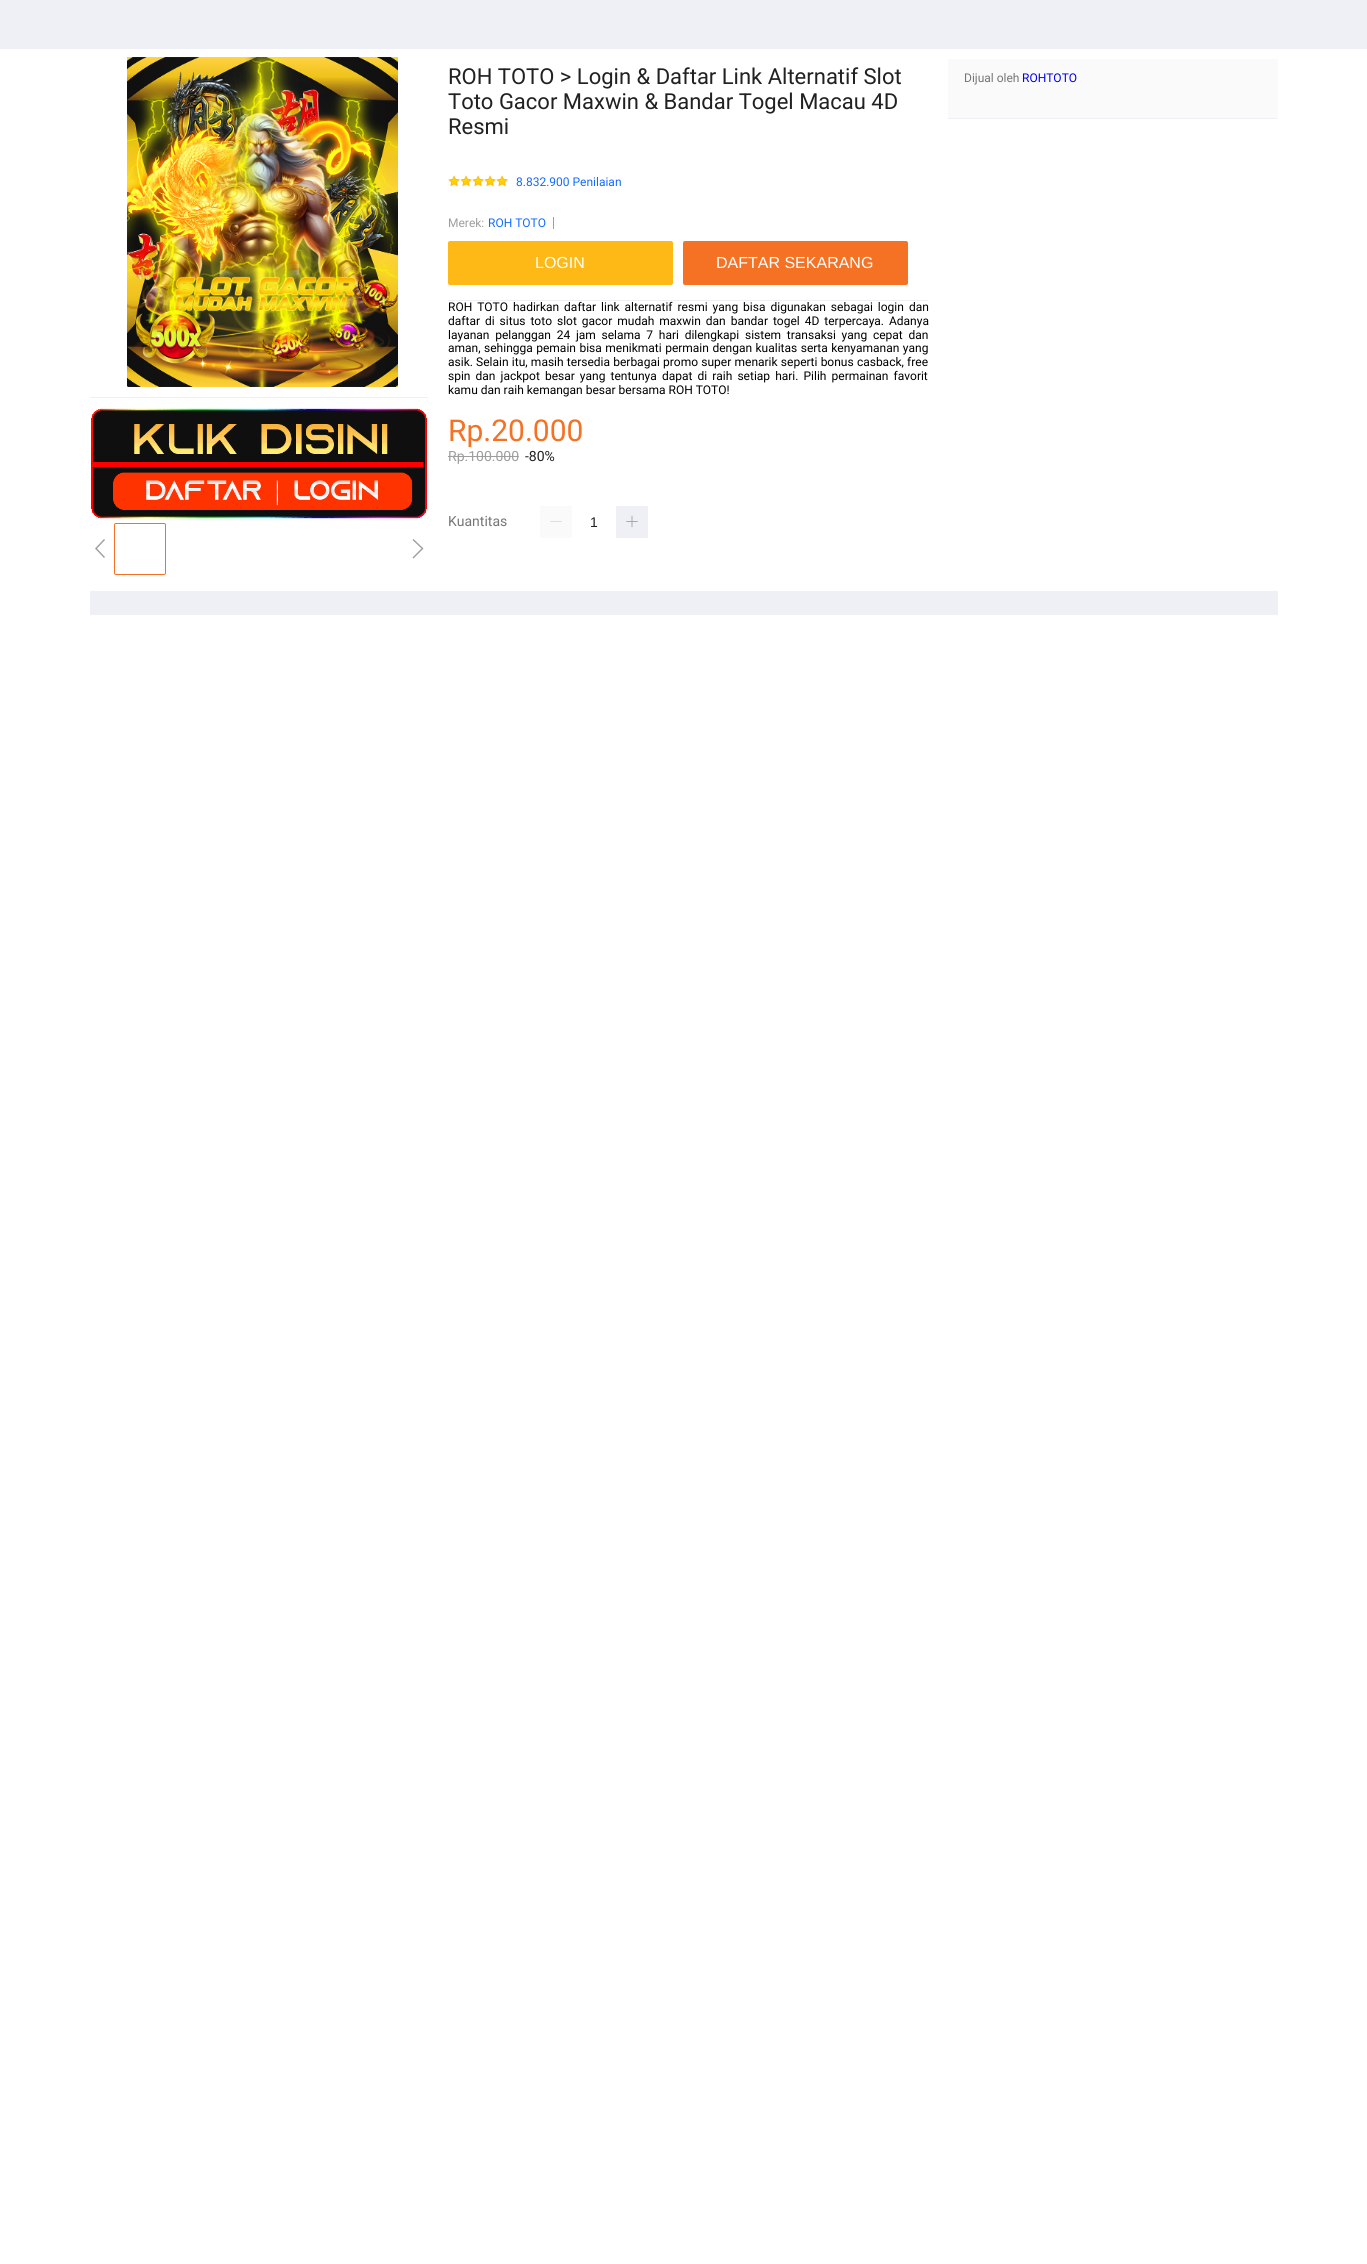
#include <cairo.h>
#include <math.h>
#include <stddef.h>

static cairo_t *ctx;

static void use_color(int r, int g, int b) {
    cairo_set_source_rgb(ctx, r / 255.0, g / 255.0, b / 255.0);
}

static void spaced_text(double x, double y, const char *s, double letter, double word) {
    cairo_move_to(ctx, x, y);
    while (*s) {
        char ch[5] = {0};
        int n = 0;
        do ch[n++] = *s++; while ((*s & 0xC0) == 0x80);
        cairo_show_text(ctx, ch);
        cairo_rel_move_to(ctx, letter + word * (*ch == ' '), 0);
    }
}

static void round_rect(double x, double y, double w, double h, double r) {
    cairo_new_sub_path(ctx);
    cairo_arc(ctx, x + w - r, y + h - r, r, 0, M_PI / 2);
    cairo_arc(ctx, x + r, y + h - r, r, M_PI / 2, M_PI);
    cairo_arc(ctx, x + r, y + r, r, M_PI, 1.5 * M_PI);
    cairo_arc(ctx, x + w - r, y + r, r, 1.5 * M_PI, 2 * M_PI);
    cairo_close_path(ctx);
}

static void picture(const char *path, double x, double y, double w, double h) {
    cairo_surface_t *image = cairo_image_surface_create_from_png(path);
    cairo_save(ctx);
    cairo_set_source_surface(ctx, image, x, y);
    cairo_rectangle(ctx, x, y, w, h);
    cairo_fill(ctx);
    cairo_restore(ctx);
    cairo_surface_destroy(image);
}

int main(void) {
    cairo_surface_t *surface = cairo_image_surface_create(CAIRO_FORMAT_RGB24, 1367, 2264);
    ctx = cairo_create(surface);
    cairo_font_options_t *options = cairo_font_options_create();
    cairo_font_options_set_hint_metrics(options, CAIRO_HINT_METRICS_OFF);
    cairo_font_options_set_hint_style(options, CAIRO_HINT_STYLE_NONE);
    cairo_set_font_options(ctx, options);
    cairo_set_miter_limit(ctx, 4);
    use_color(255, 255, 255);
    cairo_paint(ctx);
    use_color(239, 240, 245);
    cairo_rectangle(ctx, 0, 0, 1367, 49);
    cairo_fill(ctx);
    cairo_rectangle(ctx, 90, 591, 1188, 24);
    cairo_fill(ctx);
    cairo_rectangle(ctx, 90, 397, 338, 1);
    cairo_fill(ctx);
    picture("img1.png", 127, 57, 271, 330);
    picture("img2.png", 91, 408, 336, 111);
    use_color(158, 158, 158);
    cairo_new_path(ctx);
    cairo_move_to(ctx, 105, 557);
    cairo_line_to(ctx, 97, 548.5);
    cairo_line_to(ctx, 105, 540);
    cairo_line_to(ctx, 104, 539);
    cairo_line_to(ctx, 95, 548.5);
    cairo_line_to(ctx, 104, 558);
    cairo_close_path(ctx);
    cairo_fill(ctx);
    round_rect(114.5, 523.5, 51, 51, 1.5);
    use_color(245, 114, 36);
    cairo_set_line_width(ctx, 1);
    cairo_stroke(ctx);
    use_color(158, 158, 158);
    cairo_new_path(ctx);
    cairo_move_to(ctx, 413.5, 558.5);
    cairo_line_to(ctx, 412.5, 557.5);
    cairo_line_to(ctx, 421.5, 548.5);
    cairo_line_to(ctx, 412.5, 540);
    cairo_line_to(ctx, 413.5, 539);
    cairo_line_to(ctx, 423.5, 548.5);
    cairo_close_path(ctx);
    cairo_fill(ctx);
    cairo_select_font_face(ctx, "Roboto", CAIRO_FONT_SLANT_NORMAL, CAIRO_FONT_WEIGHT_NORMAL);
    cairo_set_font_size(ctx, 22);
    use_color(33, 33, 33);
    cairo_move_to(ctx, 448, 84);
    cairo_show_text(ctx, "ROH TOTO > Login & Daftar Link Alternatif Slot");
    cairo_move_to(ctx, 448, 109);
    cairo_show_text(ctx, "Toto Gacor Maxwin & Bandar Togel Macau 4D");
    cairo_move_to(ctx, 448, 134);
    cairo_show_text(ctx, "Resmi");
    picture("img3.png", 448, 175, 12, 12);
    picture("img3.png", 460, 175, 12, 12);
    picture("img3.png", 472, 175, 12, 12);
    picture("img3.png", 484, 175, 12, 12);
    picture("img3.png", 496, 175, 12, 12);
    cairo_set_font_size(ctx, 12);
    use_color(19, 108, 255);
    cairo_move_to(ctx, 516, 186);
    cairo_show_text(ctx, "8.832.900 Penilaian");
    use_color(239, 240, 245);
    cairo_rectangle(ctx, 448, 300, 480, 1);
    cairo_fill(ctx);
    use_color(158, 158, 158);
    cairo_move_to(ctx, 448, 227);
    cairo_show_text(ctx, "Merek:");
    use_color(19, 108, 255);
    cairo_move_to(ctx, 488, 227);
    cairo_show_text(ctx, "ROH TOTO");
    use_color(158, 158, 158);
    cairo_rectangle(ctx, 553, 217, 1, 12);
    cairo_fill(ctx);
    use_color(255, 185, 22);
    round_rect(448, 241, 225, 44, 2);
    cairo_fill(ctx);
    cairo_select_font_face(ctx, "Liberation Sans", CAIRO_FONT_SLANT_NORMAL, CAIRO_FONT_WEIGHT_NORMAL);
    cairo_set_font_size(ctx, 16);
    use_color(255, 255, 255);
    cairo_move_to(ctx, 535, 268);
    cairo_show_text(ctx, "LOGIN");
    use_color(245, 114, 36);
    round_rect(683, 241, 225, 44, 2);
    cairo_fill(ctx);
    use_color(255, 255, 255);
    cairo_move_to(ctx, 716, 268);
    cairo_show_text(ctx, "DAFTAR SEKARANG");
    cairo_select_font_face(ctx, "Roboto", CAIRO_FONT_SLANT_NORMAL, CAIRO_FONT_WEIGHT_NORMAL);
    cairo_set_font_size(ctx, 12);
    use_color(0, 0, 0);
    spaced_text(448, 311, "ROH TOTO hadirkan daftar link alternatif resmi yang bisa digunakan sebagai login dan", 0, 2);
    spaced_text(448, 325, "daftar di situs toto slot gacor mudah maxwin dan bandar togel 4D terpercaya. Adanya", 0, 2);
    spaced_text(448, 339, "layanan pelanggan 24 jam selama 7 hari dilengkapi sistem transaksi yang cepat dan", 0, 2.75);
    spaced_text(448, 352, "aman, sehingga pemain bisa menikmati permain dengan kualitas serta kenyamanan yang", 0, 0.5);
    spaced_text(448, 366, "asik. Selain itu, masih tersedia berbagai promo super menarik seperti bonus casback, free", 0, 0.25);
    spaced_text(448, 380, "spin dan jackpot besar yang tentunya dapat di raih setiap hari. Pilih permainan favorit", 0, 2.1);
    cairo_move_to(ctx, 448, 394);
    cairo_show_text(ctx, "kamu dan raih kemangan besar bersama ROH TOTO!");
    cairo_set_font_size(ctx, 30);
    use_color(245, 114, 36);
    cairo_move_to(ctx, 448, 441);
    cairo_show_text(ctx, "Rp.20.000");
    cairo_set_font_size(ctx, 14);
    use_color(158, 158, 158);
    cairo_move_to(ctx, 448, 461);
    cairo_show_text(ctx, "Rp.100.000");
    cairo_rectangle(ctx, 448, 456, 71, 1);
    cairo_fill(ctx);
    use_color(33, 33, 33);
    cairo_move_to(ctx, 525, 461);
    cairo_show_text(ctx, "-80%");
    use_color(117, 117, 117);
    cairo_move_to(ctx, 448, 526);
    cairo_show_text(ctx, "Kuantitas");
    use_color(250, 250, 250);
    cairo_rectangle(ctx, 540, 506, 32, 32);
    cairo_fill(ctx);
    picture("img4.png", 550, 521, 12, 1);
    use_color(239, 240, 245);
    cairo_rectangle(ctx, 616, 506, 32, 32);
    cairo_fill(ctx);
    picture("img5.png", 626, 515, 12, 13);
    cairo_select_font_face(ctx, "Liberation Sans", CAIRO_FONT_SLANT_NORMAL, CAIRO_FONT_WEIGHT_NORMAL);
    use_color(33, 33, 33);
    cairo_move_to(ctx, 590, 527);
    cairo_show_text(ctx, "1");
    use_color(250, 250, 250);
    cairo_rectangle(ctx, 948, 59, 330, 59);
    cairo_fill(ctx);
    cairo_select_font_face(ctx, "Roboto", CAIRO_FONT_SLANT_NORMAL, CAIRO_FONT_WEIGHT_NORMAL);
    cairo_set_font_size(ctx, 12);
    use_color(117, 117, 117);
    cairo_move_to(ctx, 964, 82);
    cairo_show_text(ctx, "Dijual oleh");
    use_color(0, 0, 238);
    cairo_move_to(ctx, 1022, 82);
    cairo_show_text(ctx, "ROHTOTO");
    use_color(239, 240, 245);
    cairo_rectangle(ctx, 948, 118, 330, 1);
    cairo_fill(ctx);
    cairo_surface_write_to_png(surface, "result.png");
    cairo_font_options_destroy(options);
    cairo_destroy(ctx);
    cairo_surface_destroy(surface);
    return 0;
}
